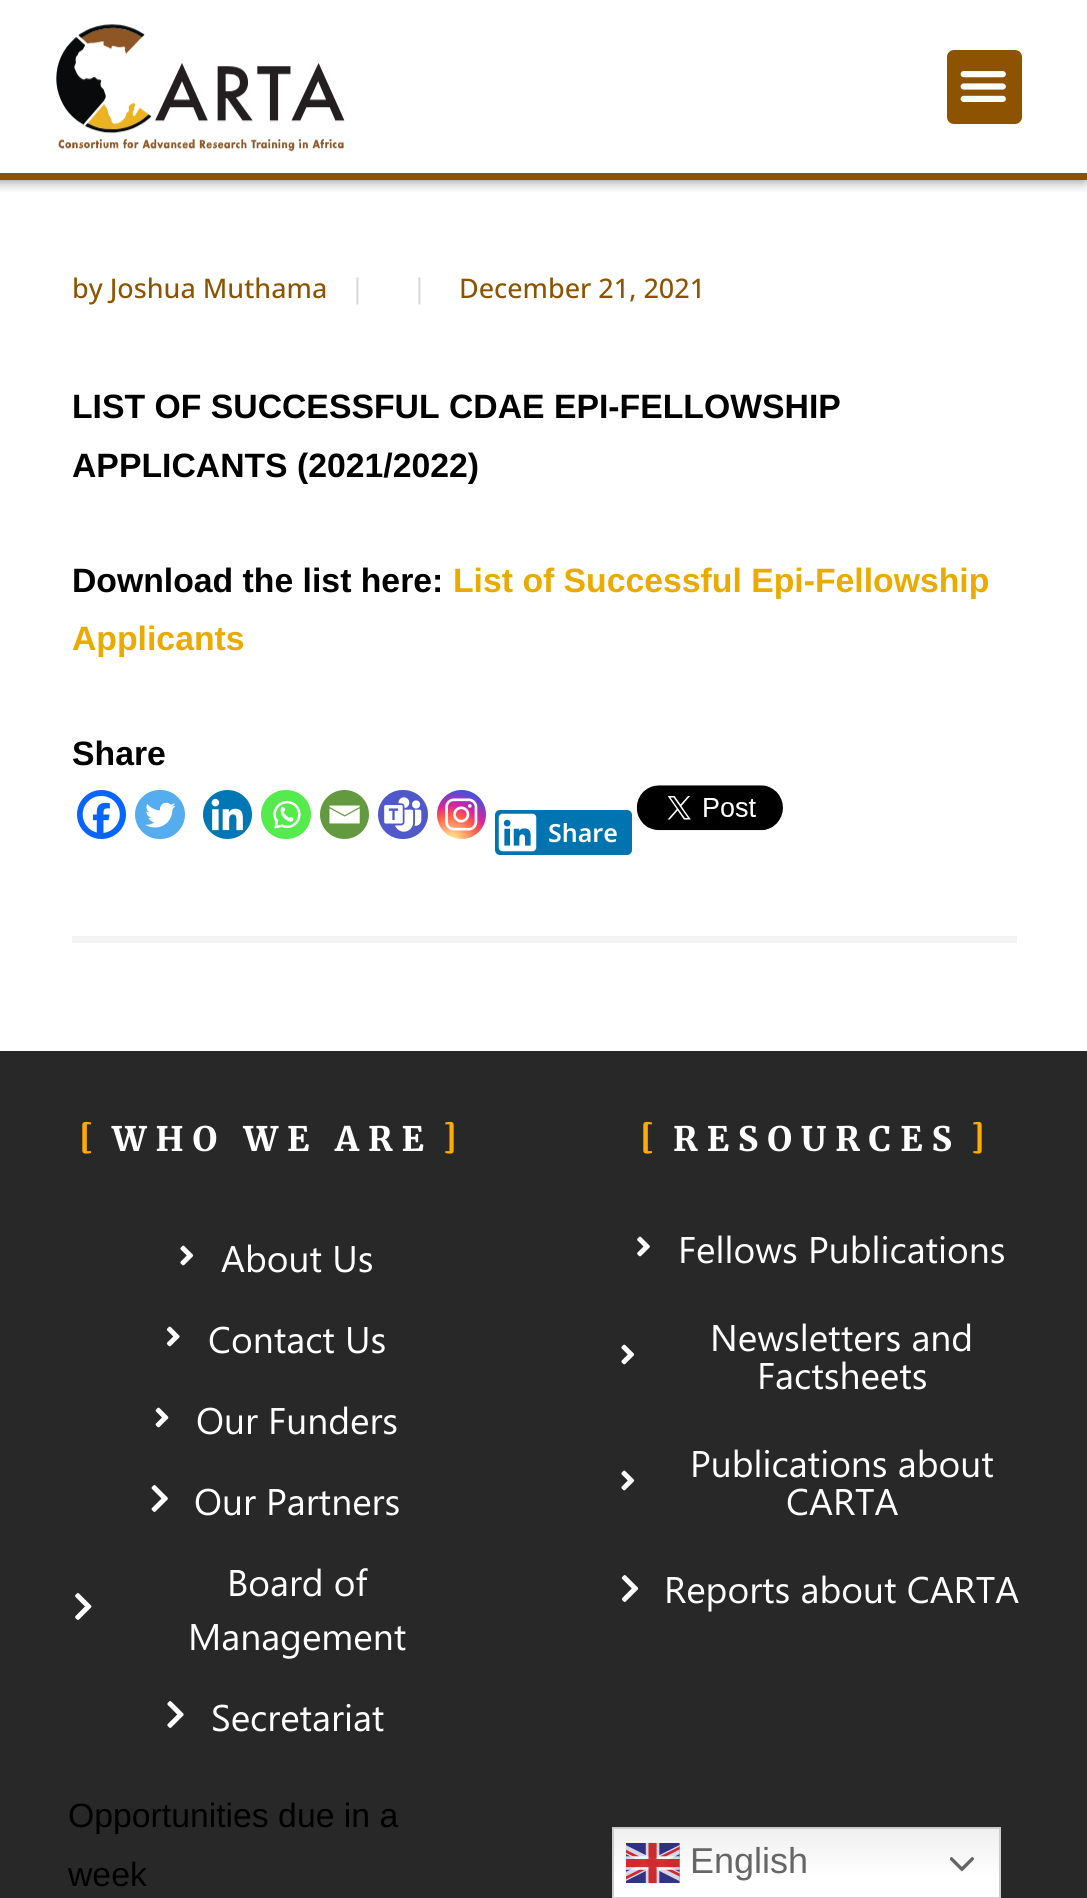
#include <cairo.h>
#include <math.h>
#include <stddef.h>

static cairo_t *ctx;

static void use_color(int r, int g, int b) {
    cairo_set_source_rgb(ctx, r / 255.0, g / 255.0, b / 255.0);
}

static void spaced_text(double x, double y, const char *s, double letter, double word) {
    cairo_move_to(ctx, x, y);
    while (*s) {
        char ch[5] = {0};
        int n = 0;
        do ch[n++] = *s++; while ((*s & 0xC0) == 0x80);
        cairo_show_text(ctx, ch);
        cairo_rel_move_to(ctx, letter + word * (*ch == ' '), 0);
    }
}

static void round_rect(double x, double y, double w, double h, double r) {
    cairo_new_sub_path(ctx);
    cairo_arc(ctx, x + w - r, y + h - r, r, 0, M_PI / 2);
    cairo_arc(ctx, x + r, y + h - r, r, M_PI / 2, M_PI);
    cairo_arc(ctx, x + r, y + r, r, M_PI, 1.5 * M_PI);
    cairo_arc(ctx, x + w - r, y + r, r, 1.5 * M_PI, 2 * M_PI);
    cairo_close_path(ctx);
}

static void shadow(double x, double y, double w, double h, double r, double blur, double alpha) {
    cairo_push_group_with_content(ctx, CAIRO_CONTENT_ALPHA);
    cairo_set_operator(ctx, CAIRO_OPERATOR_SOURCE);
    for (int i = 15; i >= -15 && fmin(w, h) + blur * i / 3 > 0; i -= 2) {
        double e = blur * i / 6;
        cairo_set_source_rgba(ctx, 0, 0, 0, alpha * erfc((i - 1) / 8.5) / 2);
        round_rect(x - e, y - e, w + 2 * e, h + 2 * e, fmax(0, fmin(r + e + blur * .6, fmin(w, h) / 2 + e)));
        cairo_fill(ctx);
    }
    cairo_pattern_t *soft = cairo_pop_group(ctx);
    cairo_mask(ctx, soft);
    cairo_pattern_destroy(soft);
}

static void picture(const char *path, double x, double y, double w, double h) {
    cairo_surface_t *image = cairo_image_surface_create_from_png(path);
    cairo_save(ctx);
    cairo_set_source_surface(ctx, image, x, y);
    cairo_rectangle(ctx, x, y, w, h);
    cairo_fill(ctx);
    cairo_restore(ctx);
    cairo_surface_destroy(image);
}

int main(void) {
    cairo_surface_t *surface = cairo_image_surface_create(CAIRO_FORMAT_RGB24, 1087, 1898);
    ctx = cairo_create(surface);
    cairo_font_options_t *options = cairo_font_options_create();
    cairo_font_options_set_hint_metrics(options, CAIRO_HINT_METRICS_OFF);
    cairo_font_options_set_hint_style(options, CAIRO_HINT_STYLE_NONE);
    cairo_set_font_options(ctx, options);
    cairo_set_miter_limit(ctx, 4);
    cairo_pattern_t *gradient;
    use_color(255, 255, 255);
    cairo_paint(ctx);
    cairo_save(ctx);
    cairo_rectangle(ctx, 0, 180, 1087, 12);
    cairo_clip(ctx);
    use_color(0, 0, 0);
    shadow(-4, 0, 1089, 180, 0, 7, 0.5);
    cairo_restore(ctx);
    use_color(141, 83, 1);
    cairo_rectangle(ctx, 0, 173, 1087, 7);
    cairo_fill(ctx);
    picture("img1.png", 56, 24, 289, 128);
    round_rect(947, 50, 75, 74, 7);
    cairo_fill(ctx);
    picture("img2.png", 960, 71, 46, 31);
    use_color(244, 244, 244);
    cairo_rectangle(ctx, 72, 936, 945, 7);
    cairo_fill(ctx);
    cairo_select_font_face(ctx, "Open Sans Medium", CAIRO_FONT_SLANT_NORMAL, CAIRO_FONT_WEIGHT_NORMAL);
    cairo_set_font_size(ctx, 27);
    use_color(141, 83, 1);
    cairo_move_to(ctx, 72, 298);
    cairo_show_text(ctx, "by Joshua Muthama");
    use_color(216, 216, 216);
    cairo_move_to(ctx, 350, 298);
    cairo_show_text(ctx, "|");
    cairo_move_to(ctx, 412, 298);
    cairo_show_text(ctx, "|");
    use_color(141, 83, 1);
    cairo_move_to(ctx, 459, 298);
    cairo_show_text(ctx, "December 21, 2021");
    cairo_select_font_face(ctx, "Liberation Sans", CAIRO_FONT_SLANT_NORMAL, CAIRO_FONT_WEIGHT_BOLD);
    cairo_set_font_size(ctx, 33.75);
    use_color(0, 0, 0);
    cairo_move_to(ctx, 72, 418);
    cairo_show_text(ctx, "LIST OF SUCCESSFUL CDAE EPI-FELLOWSHIP");
    cairo_move_to(ctx, 72, 477);
    cairo_show_text(ctx, "APPLICANTS (2021/2022)");
    cairo_move_to(ctx, 72, 592);
    cairo_show_text(ctx, "Download the list here:");
    use_color(234, 170, 0);
    cairo_move_to(ctx, 453, 592);
    cairo_show_text(ctx, "List of Successful Epi-Fellowship");
    cairo_move_to(ctx, 72, 650);
    cairo_show_text(ctx, "Applicants");
    use_color(0, 0, 0);
    cairo_move_to(ctx, 72, 765);
    cairo_show_text(ctx, "Share");
    use_color(7, 101, 254);
    cairo_new_path(ctx);
    cairo_arc(ctx, 101.5, 814.5, 24.5, 0, 2 * M_PI);
    cairo_fill(ctx);
    picture("img3.png", 82, 795, 38, 38);
    use_color(85, 172, 238);
    round_rect(135, 790, 50, 49, 24.5);
    cairo_fill(ctx);
    picture("img4.png", 145, 802, 31, 26);
    use_color(0, 119, 181);
    cairo_arc(ctx, 227.5, 814.5, 24.5, 0, 2 * M_PI);
    cairo_fill(ctx);
    picture("img5.png", 211, 798, 32, 33);
    use_color(85, 235, 76);
    round_rect(261, 790, 50, 49, 24.5);
    cairo_fill(ctx);
    picture("img6.png", 273, 800, 28, 29);
    use_color(100, 154, 63);
    cairo_arc(ctx, 344.5, 814.5, 24.5, 0, 2 * M_PI);
    cairo_fill(ctx);
    picture("img7.png", 329, 805, 31, 19);
    use_color(80, 89, 201);
    round_rect(378, 790, 50, 49, 24.5);
    cairo_fill(ctx);
    picture("img8.png", 384, 797, 38, 35);
    gradient = cairo_pattern_create_radial(451, 843, 0, 451, 843, 63);
    cairo_pattern_add_color_stop_rgba(gradient, 0, 0.992, 0.957, 0.592, 1);
    cairo_pattern_add_color_stop_rgba(gradient, 0.05, 0.992, 0.957, 0.592, 1);
    cairo_pattern_add_color_stop_rgba(gradient, 0.45, 0.992, 0.349, 0.286, 1);
    cairo_pattern_add_color_stop_rgba(gradient, 0.6, 0.839, 0.141, 0.624, 1);
    cairo_pattern_add_color_stop_rgba(gradient, 0.9, 0.157, 0.353, 0.922, 1);
    cairo_set_source(ctx, gradient);
    cairo_pattern_destroy(gradient);
    cairo_arc(ctx, 461.5, 814.5, 24.5, 0, 2 * M_PI);
    cairo_fill(ctx);
    picture("img9.png", 445, 798, 33, 33);
    use_color(0, 115, 177);
    round_rect(495, 810, 137, 45, 5);
    cairo_fill(ctx);
    picture("img10.png", 498, 813, 39, 39);
    cairo_select_font_face(ctx, "Noto Sans SemiBold", CAIRO_FONT_SLANT_NORMAL, CAIRO_FONT_WEIGHT_NORMAL);
    cairo_set_font_size(ctx, 25);
    use_color(255, 255, 255);
    cairo_move_to(ctx, 548, 842);
    cairo_show_text(ctx, "Share");
    picture("img11.png", 636, 785, 147, 46);
    use_color(40, 40, 40);
    cairo_rectangle(ctx, 0, 1051, 1087, 847);
    cairo_fill(ctx);
    cairo_select_font_face(ctx, "Merriweather ExtraBold", CAIRO_FONT_SLANT_NORMAL, CAIRO_FONT_WEIGHT_NORMAL);
    cairo_set_font_size(ctx, 33.75);
    use_color(255, 171, 0);
    spaced_text(79, 1149, "[", 9, 0);
    use_color(255, 255, 255);
    spaced_text(112, 1151, "WHO WE ARE", 9, 0);
    use_color(255, 171, 0);
    spaced_text(442, 1149, "]", 9, 0);
    picture("img12.png", 180, 1245, 14, 21);
    cairo_select_font_face(ctx, "Segoe UI", CAIRO_FONT_SLANT_NORMAL, CAIRO_FONT_WEIGHT_NORMAL);
    cairo_set_font_size(ctx, 37.1);
    use_color(255, 255, 255);
    cairo_move_to(ctx, 221, 1272);
    cairo_show_text(ctx, "About Us");
    picture("img13.png", 166, 1326, 14, 21);
    cairo_move_to(ctx, 208, 1353);
    cairo_show_text(ctx, "Contact Us");
    picture("img14.png", 155, 1407, 14, 21);
    cairo_move_to(ctx, 196, 1434);
    cairo_show_text(ctx, "Our Funders");
    picture("img15.png", 151, 1485, 17, 27);
    cairo_move_to(ctx, 194, 1515);
    cairo_show_text(ctx, "Our Partners");
    picture("img16.png", 75, 1593, 17, 27);
    cairo_move_to(ctx, 227, 1596);
    cairo_show_text(ctx, "Board of");
    cairo_move_to(ctx, 188, 1650);
    cairo_show_text(ctx, "Management");
    picture("img17.png", 167, 1701, 17, 27);
    cairo_move_to(ctx, 211, 1731);
    cairo_show_text(ctx, "Secretariat");
    cairo_select_font_face(ctx, "Liberation Sans", CAIRO_FONT_SLANT_NORMAL, CAIRO_FONT_WEIGHT_NORMAL);
    cairo_set_font_size(ctx, 33.75);
    use_color(0, 0, 0);
    cairo_move_to(ctx, 68, 1827);
    cairo_show_text(ctx, "Opportunities due in a");
    cairo_move_to(ctx, 68, 1886);
    cairo_show_text(ctx, "week");
    cairo_select_font_face(ctx, "Merriweather ExtraBold", CAIRO_FONT_SLANT_NORMAL, CAIRO_FONT_WEIGHT_NORMAL);
    use_color(255, 171, 0);
    spaced_text(640, 1149, "[", 9, 0);
    use_color(255, 255, 255);
    spaced_text(673, 1151, "RESOURCES", 9, 0);
    use_color(255, 171, 0);
    spaced_text(970, 1149, "]", 9, 0);
    picture("img18.png", 637, 1236, 13, 21);
    cairo_select_font_face(ctx, "Segoe UI", CAIRO_FONT_SLANT_NORMAL, CAIRO_FONT_WEIGHT_NORMAL);
    cairo_set_font_size(ctx, 37.1);
    use_color(255, 255, 255);
    cairo_move_to(ctx, 678, 1263);
    cairo_show_text(ctx, "Fellows Publications");
    picture("img12.png", 621, 1344, 14, 21);
    cairo_move_to(ctx, 710, 1351);
    cairo_show_text(ctx, "Newsletters and");
    cairo_move_to(ctx, 757, 1389);
    cairo_show_text(ctx, "Factsheets");
    picture("img12.png", 621, 1470, 14, 21);
    cairo_move_to(ctx, 690, 1477);
    cairo_show_text(ctx, "Publications about");
    cairo_move_to(ctx, 786, 1515);
    cairo_show_text(ctx, "CARTA");
    picture("img19.png", 621, 1575, 18, 27);
    cairo_move_to(ctx, 664, 1603);
    cairo_show_text(ctx, "Reports about CARTA");
    gradient = cairo_pattern_create_linear(807, 1827, 807, 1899);
    cairo_pattern_add_color_stop_rgba(gradient, 0, 0.937, 0.937, 0.937, 1);
    cairo_pattern_add_color_stop_rgba(gradient, 0.7, 1, 1, 1, 1);
    cairo_set_source(ctx, gradient);
    cairo_pattern_destroy(gradient);
    cairo_rectangle(ctx, 614, 1829, 385, 68);
    cairo_fill(ctx);
    cairo_rectangle(ctx, 613, 1828, 387, 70);
    use_color(204, 204, 204);
    cairo_stroke(ctx);
    picture("img20.png", 626, 1842, 54, 42);
    cairo_select_font_face(ctx, "Liberation Sans", CAIRO_FONT_SLANT_NORMAL, CAIRO_FONT_WEIGHT_NORMAL);
    cairo_set_font_size(ctx, 36);
    use_color(102, 102, 102);
    cairo_move_to(ctx, 690, 1873);
    cairo_show_text(ctx, "English");
    picture("img21.png", 950, 1857, 24, 15);
    cairo_surface_write_to_png(surface, "result.png");
    cairo_font_options_destroy(options);
    cairo_destroy(ctx);
    cairo_surface_destroy(surface);
    return 0;
}
